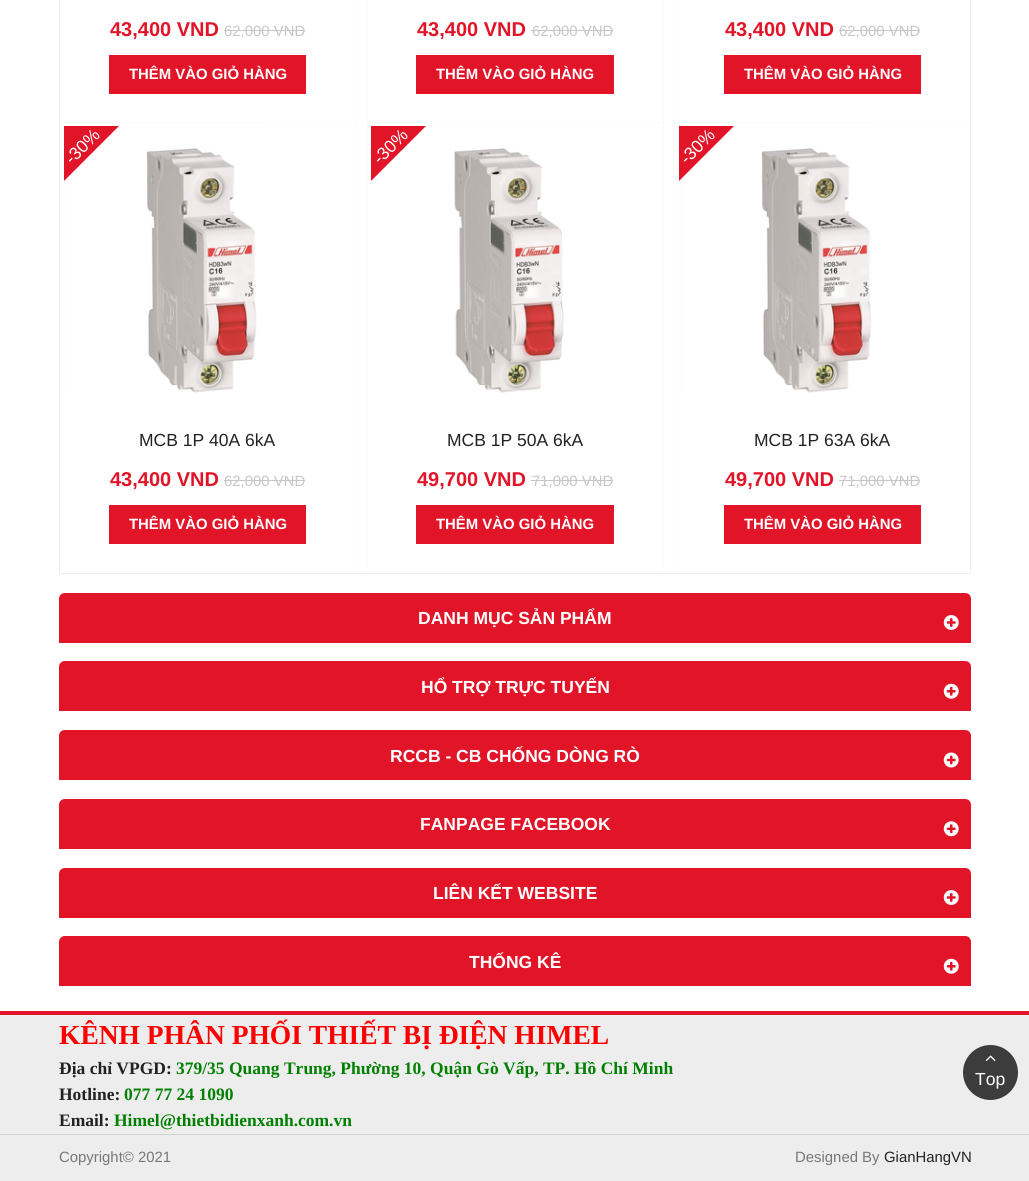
#include <cairo.h>
#include <math.h>
#include <stddef.h>

static cairo_t *ctx;

static void use_color(int r, int g, int b) {
    cairo_set_source_rgb(ctx, r / 255.0, g / 255.0, b / 255.0);
}

static void round_rect(double x, double y, double w, double h, double r) {
    cairo_new_sub_path(ctx);
    cairo_arc(ctx, x + w - r, y + h - r, r, 0, M_PI / 2);
    cairo_arc(ctx, x + r, y + h - r, r, M_PI / 2, M_PI);
    cairo_arc(ctx, x + r, y + r, r, M_PI, 1.5 * M_PI);
    cairo_arc(ctx, x + w - r, y + r, r, 1.5 * M_PI, 2 * M_PI);
    cairo_close_path(ctx);
}

static void shadow(double x, double y, double w, double h, double r, double blur, double alpha) {
    cairo_push_group_with_content(ctx, CAIRO_CONTENT_ALPHA);
    cairo_set_operator(ctx, CAIRO_OPERATOR_SOURCE);
    for (int i = 15; i >= -15 && fmin(w, h) + blur * i / 3 > 0; i -= 2) {
        double e = blur * i / 6;
        cairo_set_source_rgba(ctx, 0, 0, 0, alpha * erfc((i - 1) / 8.5) / 2);
        round_rect(x - e, y - e, w + 2 * e, h + 2 * e, fmax(0, fmin(r + e + blur * .6, fmin(w, h) / 2 + e)));
        cairo_fill(ctx);
    }
    cairo_pattern_t *soft = cairo_pop_group(ctx);
    cairo_mask(ctx, soft);
    cairo_pattern_destroy(soft);
}

static void picture(const char *path, double x, double y, double w, double h) {
    cairo_surface_t *image = cairo_image_surface_create_from_png(path);
    cairo_save(ctx);
    cairo_set_source_surface(ctx, image, x, y);
    cairo_rectangle(ctx, x, y, w, h);
    cairo_fill(ctx);
    cairo_restore(ctx);
    cairo_surface_destroy(image);
}

int main(void) {
    cairo_surface_t *surface = cairo_image_surface_create(CAIRO_FORMAT_RGB24, 1029, 1181);
    ctx = cairo_create(surface);
    cairo_font_options_t *options = cairo_font_options_create();
    cairo_font_options_set_hint_metrics(options, CAIRO_HINT_METRICS_OFF);
    cairo_font_options_set_hint_style(options, CAIRO_HINT_STYLE_NONE);
    cairo_set_font_options(ctx, options);
    cairo_set_miter_limit(ctx, 4);
    use_color(255, 255, 255);
    cairo_paint(ctx);
    use_color(238, 238, 238);
    cairo_rectangle(ctx, 970, 0, 1, 574);
    cairo_fill(ctx);
    cairo_rectangle(ctx, 59, 573, 912, 1);
    cairo_fill(ctx);
    cairo_rectangle(ctx, 59, 0, 1, 574);
    cairo_fill(ctx);
    use_color(238, 238, 238);
    shadow(60, -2, 295, 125, 0, 0.5, 1);
    use_color(255, 255, 255);
    cairo_rectangle(ctx, 60, 0, 295, 123);
    cairo_fill(ctx);
    cairo_select_font_face(ctx, "Liberation Sans", CAIRO_FONT_SLANT_NORMAL, CAIRO_FONT_WEIGHT_BOLD);
    cairo_set_font_size(ctx, 20);
    use_color(225, 20, 40);
    cairo_move_to(ctx, 110, 36);
    cairo_show_text(ctx, "43,400 VND");
    cairo_select_font_face(ctx, "Liberation Sans", CAIRO_FONT_SLANT_NORMAL, CAIRO_FONT_WEIGHT_NORMAL);
    cairo_set_font_size(ctx, 14.9);
    use_color(199, 199, 199);
    cairo_move_to(ctx, 224, 36);
    cairo_show_text(ctx, "62,000 VND");
    cairo_rectangle(ctx, 224, 30, 81, 1);
    cairo_fill(ctx);
    use_color(225, 20, 40);
    cairo_rectangle(ctx, 109, 55, 197, 39);
    cairo_fill(ctx);
    cairo_select_font_face(ctx, "Liberation Sans", CAIRO_FONT_SLANT_NORMAL, CAIRO_FONT_WEIGHT_BOLD);
    use_color(255, 255, 255);
    cairo_move_to(ctx, 129, 79);
    cairo_show_text(ctx, "THÊM VÀO GIỎ HÀNG");
    use_color(238, 238, 238);
    shadow(368, -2, 295, 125, 0, 0.5, 1);
    use_color(255, 255, 255);
    cairo_rectangle(ctx, 368, 0, 295, 123);
    cairo_fill(ctx);
    cairo_set_font_size(ctx, 20);
    use_color(225, 20, 40);
    cairo_move_to(ctx, 417, 36);
    cairo_show_text(ctx, "43,400 VND");
    cairo_select_font_face(ctx, "Liberation Sans", CAIRO_FONT_SLANT_NORMAL, CAIRO_FONT_WEIGHT_NORMAL);
    cairo_set_font_size(ctx, 14.9);
    use_color(199, 199, 199);
    cairo_move_to(ctx, 532, 36);
    cairo_show_text(ctx, "62,000 VND");
    cairo_rectangle(ctx, 531, 30, 82, 1);
    cairo_fill(ctx);
    use_color(225, 20, 40);
    cairo_rectangle(ctx, 416, 55, 198, 39);
    cairo_fill(ctx);
    cairo_select_font_face(ctx, "Liberation Sans", CAIRO_FONT_SLANT_NORMAL, CAIRO_FONT_WEIGHT_BOLD);
    use_color(255, 255, 255);
    cairo_move_to(ctx, 436, 79);
    cairo_show_text(ctx, "THÊM VÀO GIỎ HÀNG");
    use_color(238, 238, 238);
    shadow(675, -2, 295, 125, 0, 0.5, 1);
    use_color(255, 255, 255);
    cairo_rectangle(ctx, 675, 0, 295, 123);
    cairo_fill(ctx);
    cairo_set_font_size(ctx, 20);
    use_color(225, 20, 40);
    cairo_move_to(ctx, 725, 36);
    cairo_show_text(ctx, "43,400 VND");
    cairo_select_font_face(ctx, "Liberation Sans", CAIRO_FONT_SLANT_NORMAL, CAIRO_FONT_WEIGHT_NORMAL);
    cairo_set_font_size(ctx, 14.9);
    use_color(199, 199, 199);
    cairo_move_to(ctx, 839, 36);
    cairo_show_text(ctx, "62,000 VND");
    cairo_rectangle(ctx, 839, 30, 81, 1);
    cairo_fill(ctx);
    use_color(225, 20, 40);
    cairo_rectangle(ctx, 724, 55, 197, 39);
    cairo_fill(ctx);
    cairo_select_font_face(ctx, "Liberation Sans", CAIRO_FONT_SLANT_NORMAL, CAIRO_FONT_WEIGHT_BOLD);
    use_color(255, 255, 255);
    cairo_move_to(ctx, 744, 79);
    cairo_show_text(ctx, "THÊM VÀO GIỎ HÀNG");
    use_color(238, 238, 238);
    shadow(60, 123, 295, 450, 0, 0.5, 1);
    use_color(255, 255, 255);
    cairo_rectangle(ctx, 60, 123, 295, 450);
    cairo_fill(ctx);
    picture("img1.png", 65, 127, 192, 266);
    cairo_save(ctx);
    cairo_rectangle(ctx, 64, 126, 287, 288);
    cairo_clip(ctx);
    use_color(225, 20, 40);
    cairo_new_path(ctx);
    cairo_move_to(ctx, 2, 124);
    cairo_line_to(ctx, 60, 67);
    cairo_line_to(ctx, 119, 126);
    cairo_line_to(ctx, 62, 183);
    cairo_close_path(ctx);
    cairo_fill(ctx);
    cairo_restore(ctx);
    cairo_select_font_face(ctx, "Liberation Sans", CAIRO_FONT_SLANT_NORMAL, CAIRO_FONT_WEIGHT_NORMAL);
    cairo_set_font_size(ctx, 17.5);
    cairo_save(ctx);
    cairo_translate(ctx, 72, 165);
    cairo_rotate(ctx, -45 * M_PI / 180);
    cairo_move_to(ctx, 0, 0);
    cairo_show_text(ctx, "-30%");
    cairo_restore(ctx);
    use_color(34, 34, 34);
    cairo_move_to(ctx, 139, 446);
    cairo_show_text(ctx, "MCB 1P 40A 6kA");
    cairo_select_font_face(ctx, "Liberation Sans", CAIRO_FONT_SLANT_NORMAL, CAIRO_FONT_WEIGHT_BOLD);
    cairo_set_font_size(ctx, 20);
    use_color(225, 20, 40);
    cairo_move_to(ctx, 110, 486);
    cairo_show_text(ctx, "43,400 VND");
    cairo_select_font_face(ctx, "Liberation Sans", CAIRO_FONT_SLANT_NORMAL, CAIRO_FONT_WEIGHT_NORMAL);
    cairo_set_font_size(ctx, 14.9);
    use_color(199, 199, 199);
    cairo_move_to(ctx, 224, 486);
    cairo_show_text(ctx, "62,000 VND");
    cairo_rectangle(ctx, 224, 480, 81, 1);
    cairo_fill(ctx);
    use_color(225, 20, 40);
    cairo_rectangle(ctx, 109, 505, 197, 39);
    cairo_fill(ctx);
    cairo_select_font_face(ctx, "Liberation Sans", CAIRO_FONT_SLANT_NORMAL, CAIRO_FONT_WEIGHT_BOLD);
    use_color(255, 255, 255);
    cairo_move_to(ctx, 129, 529);
    cairo_show_text(ctx, "THÊM VÀO GIỎ HÀNG");
    use_color(238, 238, 238);
    shadow(368, 123, 295, 450, 0, 0.5, 1);
    use_color(255, 255, 255);
    cairo_rectangle(ctx, 368, 123, 295, 450);
    cairo_fill(ctx);
    cairo_save(ctx);
    cairo_rectangle(ctx, 371, 126, 288, 288);
    cairo_clip(ctx);
    use_color(225, 20, 40);
    cairo_new_path(ctx);
    cairo_move_to(ctx, 310, 124);
    cairo_line_to(ctx, 367, 67);
    cairo_line_to(ctx, 426, 126);
    cairo_line_to(ctx, 369, 183);
    cairo_close_path(ctx);
    cairo_fill(ctx);
    cairo_restore(ctx);
    cairo_select_font_face(ctx, "Liberation Sans", CAIRO_FONT_SLANT_NORMAL, CAIRO_FONT_WEIGHT_NORMAL);
    cairo_set_font_size(ctx, 17.5);
    cairo_save(ctx);
    cairo_translate(ctx, 380, 165);
    cairo_rotate(ctx, -45 * M_PI / 180);
    cairo_move_to(ctx, 0, 0);
    cairo_show_text(ctx, "-30%");
    cairo_restore(ctx);
    picture("img2.png", 454, 148, 110, 245);
    use_color(34, 34, 34);
    cairo_move_to(ctx, 447, 446);
    cairo_show_text(ctx, "MCB 1P 50A 6kA");
    cairo_select_font_face(ctx, "Liberation Sans", CAIRO_FONT_SLANT_NORMAL, CAIRO_FONT_WEIGHT_BOLD);
    cairo_set_font_size(ctx, 20);
    use_color(225, 20, 40);
    cairo_move_to(ctx, 417, 486);
    cairo_show_text(ctx, "49,700 VND");
    cairo_select_font_face(ctx, "Liberation Sans", CAIRO_FONT_SLANT_NORMAL, CAIRO_FONT_WEIGHT_NORMAL);
    cairo_set_font_size(ctx, 14.9);
    use_color(199, 199, 199);
    cairo_move_to(ctx, 532, 486);
    cairo_show_text(ctx, "71,000 VND");
    cairo_rectangle(ctx, 531, 480, 82, 1);
    cairo_fill(ctx);
    use_color(225, 20, 40);
    cairo_rectangle(ctx, 416, 505, 198, 39);
    cairo_fill(ctx);
    cairo_select_font_face(ctx, "Liberation Sans", CAIRO_FONT_SLANT_NORMAL, CAIRO_FONT_WEIGHT_BOLD);
    use_color(255, 255, 255);
    cairo_move_to(ctx, 436, 529);
    cairo_show_text(ctx, "THÊM VÀO GIỎ HÀNG");
    use_color(238, 238, 238);
    shadow(675, 123, 295, 450, 0, 0.5, 1);
    use_color(255, 255, 255);
    cairo_rectangle(ctx, 675, 123, 295, 450);
    cairo_fill(ctx);
    picture("img3.png", 680, 127, 192, 266);
    cairo_save(ctx);
    cairo_rectangle(ctx, 679, 126, 287, 288);
    cairo_clip(ctx);
    use_color(225, 20, 40);
    cairo_new_path(ctx);
    cairo_move_to(ctx, 617, 124);
    cairo_line_to(ctx, 675, 67);
    cairo_line_to(ctx, 734, 126);
    cairo_line_to(ctx, 677, 183);
    cairo_close_path(ctx);
    cairo_fill(ctx);
    cairo_restore(ctx);
    cairo_select_font_face(ctx, "Liberation Sans", CAIRO_FONT_SLANT_NORMAL, CAIRO_FONT_WEIGHT_NORMAL);
    cairo_set_font_size(ctx, 17.5);
    cairo_save(ctx);
    cairo_translate(ctx, 687, 165);
    cairo_rotate(ctx, -45 * M_PI / 180);
    cairo_move_to(ctx, 0, 0);
    cairo_show_text(ctx, "-30%");
    cairo_restore(ctx);
    use_color(34, 34, 34);
    cairo_move_to(ctx, 754, 446);
    cairo_show_text(ctx, "MCB 1P 63A 6kA");
    cairo_select_font_face(ctx, "Liberation Sans", CAIRO_FONT_SLANT_NORMAL, CAIRO_FONT_WEIGHT_BOLD);
    cairo_set_font_size(ctx, 20);
    use_color(225, 20, 40);
    cairo_move_to(ctx, 725, 486);
    cairo_show_text(ctx, "49,700 VND");
    cairo_select_font_face(ctx, "Liberation Sans", CAIRO_FONT_SLANT_NORMAL, CAIRO_FONT_WEIGHT_NORMAL);
    cairo_set_font_size(ctx, 14.9);
    use_color(199, 199, 199);
    cairo_move_to(ctx, 839, 486);
    cairo_show_text(ctx, "71,000 VND");
    cairo_rectangle(ctx, 839, 480, 81, 1);
    cairo_fill(ctx);
    use_color(225, 20, 40);
    cairo_rectangle(ctx, 724, 505, 197, 39);
    cairo_fill(ctx);
    cairo_select_font_face(ctx, "Liberation Sans", CAIRO_FONT_SLANT_NORMAL, CAIRO_FONT_WEIGHT_BOLD);
    use_color(255, 255, 255);
    cairo_move_to(ctx, 744, 529);
    cairo_show_text(ctx, "THÊM VÀO GIỎ HÀNG");
    use_color(225, 20, 40);
    cairo_new_path(ctx);
    cairo_move_to(ctx, 65, 593);
    cairo_line_to(ctx, 965, 593);
    cairo_curve_to(ctx, 968.5, 593, 971, 595.5, 971, 599);
    cairo_line_to(ctx, 971, 643);
    cairo_line_to(ctx, 59, 643);
    cairo_line_to(ctx, 59, 599);
    cairo_curve_to(ctx, 59, 595.5, 61.5, 593, 65, 593);
    cairo_close_path(ctx);
    cairo_fill(ctx);
    cairo_set_font_size(ctx, 17.5);
    use_color(255, 255, 255);
    cairo_move_to(ctx, 418, 624);
    cairo_show_text(ctx, "DANH MỤC SẢN PHẨM");
    picture("img4.png", 943, 615, 16, 15);
    use_color(225, 20, 40);
    cairo_new_path(ctx);
    cairo_move_to(ctx, 65, 661);
    cairo_line_to(ctx, 965, 661);
    cairo_curve_to(ctx, 968.5, 661, 971, 663.5, 971, 667);
    cairo_line_to(ctx, 971, 711);
    cairo_line_to(ctx, 59, 711);
    cairo_line_to(ctx, 59, 667);
    cairo_curve_to(ctx, 59, 663.5, 61.5, 661, 65, 661);
    cairo_close_path(ctx);
    cairo_fill(ctx);
    use_color(255, 255, 255);
    cairo_move_to(ctx, 421, 693);
    cairo_show_text(ctx, "HỔ TRỢ TRỰC TUYẾN");
    picture("img5.png", 943, 683, 16, 16);
    use_color(225, 20, 40);
    cairo_new_path(ctx);
    cairo_move_to(ctx, 65, 730);
    cairo_line_to(ctx, 965, 730);
    cairo_curve_to(ctx, 968.5, 730, 971, 732.5, 971, 736);
    cairo_line_to(ctx, 971, 780);
    cairo_line_to(ctx, 59, 780);
    cairo_line_to(ctx, 59, 736);
    cairo_curve_to(ctx, 59, 732.5, 61.5, 730, 65, 730);
    cairo_close_path(ctx);
    cairo_fill(ctx);
    use_color(255, 255, 255);
    cairo_move_to(ctx, 390, 762);
    cairo_show_text(ctx, "RCCB - CB CHỐNG DÒNG RÒ");
    picture("img6.png", 943, 752, 16, 16);
    use_color(225, 20, 40);
    cairo_new_path(ctx);
    cairo_move_to(ctx, 65, 799);
    cairo_line_to(ctx, 965, 799);
    cairo_curve_to(ctx, 968.5, 799, 971, 801.5, 971, 805);
    cairo_line_to(ctx, 971, 849);
    cairo_line_to(ctx, 59, 849);
    cairo_line_to(ctx, 59, 805);
    cairo_curve_to(ctx, 59, 801.5, 61.5, 799, 65, 799);
    cairo_close_path(ctx);
    cairo_fill(ctx);
    use_color(255, 255, 255);
    cairo_move_to(ctx, 420, 830);
    cairo_show_text(ctx, "FANPAGE FACEBOOK");
    picture("img7.png", 943, 821, 16, 16);
    use_color(225, 20, 40);
    cairo_new_path(ctx);
    cairo_move_to(ctx, 65, 868);
    cairo_line_to(ctx, 965, 868);
    cairo_curve_to(ctx, 968.5, 868, 971, 870.5, 971, 874);
    cairo_line_to(ctx, 971, 918);
    cairo_line_to(ctx, 59, 918);
    cairo_line_to(ctx, 59, 874);
    cairo_curve_to(ctx, 59, 870.5, 61.5, 868, 65, 868);
    cairo_close_path(ctx);
    cairo_fill(ctx);
    use_color(255, 255, 255);
    cairo_move_to(ctx, 433, 899);
    cairo_show_text(ctx, "LIÊN KẾT WEBSITE");
    picture("img4.png", 943, 890, 16, 15);
    use_color(225, 20, 40);
    cairo_new_path(ctx);
    cairo_move_to(ctx, 65, 936);
    cairo_line_to(ctx, 965, 936);
    cairo_curve_to(ctx, 968.5, 936, 971, 938.5, 971, 942);
    cairo_line_to(ctx, 971, 986);
    cairo_line_to(ctx, 59, 986);
    cairo_line_to(ctx, 59, 942);
    cairo_curve_to(ctx, 59, 938.5, 61.5, 936, 65, 936);
    cairo_close_path(ctx);
    cairo_fill(ctx);
    use_color(255, 255, 255);
    cairo_move_to(ctx, 469, 968);
    cairo_show_text(ctx, "THỐNG KÊ");
    picture("img5.png", 943, 958, 16, 16);
    use_color(237, 237, 237);
    cairo_rectangle(ctx, 0, 1015, 1029, 119);
    cairo_fill(ctx);
    use_color(225, 20, 40);
    cairo_rectangle(ctx, 0, 1011, 1029, 4);
    cairo_fill(ctx);
    cairo_select_font_face(ctx, "Liberation Serif", CAIRO_FONT_SLANT_NORMAL, CAIRO_FONT_WEIGHT_BOLD);
    cairo_set_font_size(ctx, 27.5);
    use_color(255, 0, 0);
    cairo_move_to(ctx, 59, 1044);
    cairo_show_text(ctx, "KÊNH PHÂN PHỐI THIẾT BỊ ĐIỆN HIMEL");
    cairo_set_font_size(ctx, 17.5);
    use_color(34, 34, 34);
    cairo_move_to(ctx, 59, 1074);
    cairo_show_text(ctx, "Địa chỉ VPGD:");
    use_color(0, 128, 0);
    cairo_move_to(ctx, 176, 1074);
    cairo_show_text(ctx, "379/35 Quang Trung, Phường 10, Quận Gò Vấp, TP. Hồ Chí Minh");
    use_color(34, 34, 34);
    cairo_move_to(ctx, 59, 1100);
    cairo_show_text(ctx, "Hotline:");
    use_color(0, 128, 0);
    cairo_move_to(ctx, 124, 1100);
    cairo_show_text(ctx, "077 77 24 1090");
    use_color(34, 34, 34);
    cairo_move_to(ctx, 59, 1126);
    cairo_show_text(ctx, "Email:");
    use_color(0, 128, 0);
    cairo_move_to(ctx, 114, 1126);
    cairo_show_text(ctx, "Himel@thietbidienxanh.com.vn");
    use_color(237, 237, 237);
    cairo_rectangle(ctx, 0, 1135, 1029, 46);
    cairo_fill(ctx);
    use_color(213, 210, 210);
    cairo_rectangle(ctx, 0, 1134, 1029, 1);
    cairo_fill(ctx);
    cairo_select_font_face(ctx, "Liberation Sans", CAIRO_FONT_SLANT_NORMAL, CAIRO_FONT_WEIGHT_NORMAL);
    cairo_set_font_size(ctx, 14.9);
    use_color(119, 119, 119);
    cairo_move_to(ctx, 59, 1162);
    cairo_show_text(ctx, "Copyright© 2021");
    cairo_move_to(ctx, 795, 1162);
    cairo_show_text(ctx, "Designed By");
    use_color(34, 34, 34);
    cairo_move_to(ctx, 884, 1162);
    cairo_show_text(ctx, "GianHangVN");
    use_color(60, 60, 60);
    cairo_new_path(ctx);
    cairo_arc(ctx, 990.5, 1072.5, 27.5, 0, 2 * M_PI);
    cairo_fill(ctx);
    picture("img8.png", 985, 1055, 11, 7);
    cairo_set_font_size(ctx, 17.5);
    use_color(255, 255, 255);
    cairo_move_to(ctx, 975, 1085);
    cairo_show_text(ctx, "Top");
    cairo_surface_write_to_png(surface, "result.png");
    cairo_font_options_destroy(options);
    cairo_destroy(ctx);
    cairo_surface_destroy(surface);
    return 0;
}
